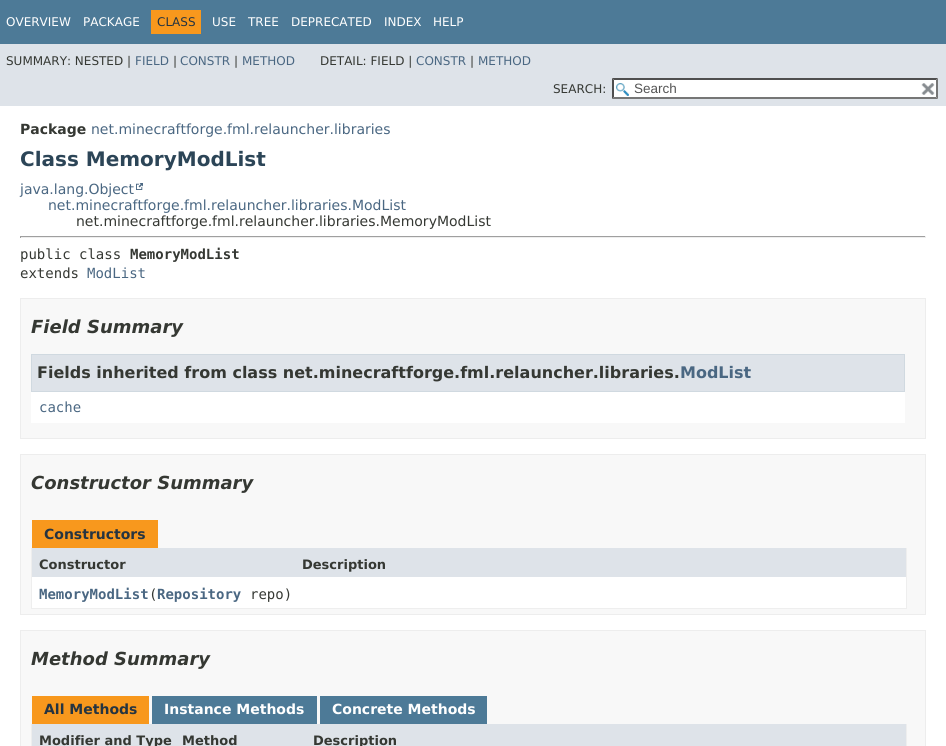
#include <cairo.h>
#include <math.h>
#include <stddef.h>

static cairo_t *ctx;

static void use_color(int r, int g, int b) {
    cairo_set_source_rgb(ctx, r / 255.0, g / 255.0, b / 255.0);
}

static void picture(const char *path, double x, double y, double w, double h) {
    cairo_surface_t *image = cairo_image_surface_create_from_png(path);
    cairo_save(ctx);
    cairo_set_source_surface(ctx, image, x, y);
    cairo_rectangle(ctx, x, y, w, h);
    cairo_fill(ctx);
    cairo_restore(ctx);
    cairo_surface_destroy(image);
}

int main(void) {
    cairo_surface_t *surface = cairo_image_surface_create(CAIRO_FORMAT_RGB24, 946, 746);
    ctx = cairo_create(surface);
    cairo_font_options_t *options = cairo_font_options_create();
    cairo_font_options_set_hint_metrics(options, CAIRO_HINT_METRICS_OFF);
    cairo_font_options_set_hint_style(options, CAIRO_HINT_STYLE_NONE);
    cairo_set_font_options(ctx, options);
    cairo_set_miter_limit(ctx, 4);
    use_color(255, 255, 255);
    cairo_paint(ctx);
    use_color(77, 122, 151);
    cairo_rectangle(ctx, 0, 0, 946, 44);
    cairo_fill(ctx);
    cairo_select_font_face(ctx, "DejaVu Sans", CAIRO_FONT_SLANT_NORMAL, CAIRO_FONT_WEIGHT_NORMAL);
    cairo_set_font_size(ctx, 12);
    use_color(255, 255, 255);
    cairo_move_to(ctx, 6, 26);
    cairo_show_text(ctx, "OVERVIEW");
    cairo_move_to(ctx, 83, 26);
    cairo_show_text(ctx, "PACKAGE");
    use_color(248, 152, 29);
    cairo_rectangle(ctx, 151, 10, 50, 24);
    cairo_fill(ctx);
    use_color(37, 52, 65);
    cairo_move_to(ctx, 157, 26);
    cairo_show_text(ctx, "CLASS");
    use_color(255, 255, 255);
    cairo_move_to(ctx, 212, 26);
    cairo_show_text(ctx, "USE");
    cairo_move_to(ctx, 248, 26);
    cairo_show_text(ctx, "TREE");
    cairo_move_to(ctx, 291, 26);
    cairo_show_text(ctx, "DEPRECATED");
    cairo_move_to(ctx, 384, 26);
    cairo_show_text(ctx, "INDEX");
    cairo_move_to(ctx, 433, 26);
    cairo_show_text(ctx, "HELP");
    use_color(222, 227, 233);
    cairo_rectangle(ctx, 0, 44, 946, 62);
    cairo_fill(ctx);
    use_color(53, 56, 51);
    cairo_move_to(ctx, 6, 65);
    cairo_show_text(ctx, "SUMMARY: NESTED |");
    use_color(74, 103, 130);
    cairo_move_to(ctx, 135, 65);
    cairo_show_text(ctx, "FIELD");
    use_color(53, 56, 51);
    cairo_move_to(ctx, 173, 65);
    cairo_show_text(ctx, "|");
    use_color(74, 103, 130);
    cairo_move_to(ctx, 180, 65);
    cairo_show_text(ctx, "CONSTR");
    use_color(53, 56, 51);
    cairo_move_to(ctx, 234, 65);
    cairo_show_text(ctx, "|");
    use_color(74, 103, 130);
    cairo_move_to(ctx, 242, 65);
    cairo_show_text(ctx, "METHOD");
    use_color(53, 56, 51);
    cairo_move_to(ctx, 320, 65);
    cairo_show_text(ctx, "DETAIL: FIELD |");
    use_color(74, 103, 130);
    cairo_move_to(ctx, 416, 65);
    cairo_show_text(ctx, "CONSTR");
    use_color(53, 56, 51);
    cairo_move_to(ctx, 470, 65);
    cairo_show_text(ctx, "|");
    use_color(74, 103, 130);
    cairo_move_to(ctx, 478, 65);
    cairo_show_text(ctx, "METHOD");
    use_color(53, 56, 51);
    cairo_move_to(ctx, 553, 93);
    cairo_show_text(ctx, "SEARCH:");
    use_color(255, 255, 255);
    cairo_rectangle(ctx, 612, 78, 326, 21);
    cairo_fill(ctx);
    picture("img1.png", 616, 83, 13, 13);
    use_color(79, 79, 79);
    cairo_new_path(ctx);
    cairo_move_to(ctx, 612, 78);
    cairo_line_to(ctx, 938, 78);
    cairo_line_to(ctx, 936, 80);
    cairo_line_to(ctx, 614, 80);
    cairo_close_path(ctx);
    cairo_fill(ctx);
    use_color(118, 118, 118);
    cairo_new_path(ctx);
    cairo_move_to(ctx, 938, 78);
    cairo_line_to(ctx, 938, 99);
    cairo_line_to(ctx, 936, 97);
    cairo_line_to(ctx, 936, 80);
    cairo_close_path(ctx);
    cairo_fill(ctx);
    cairo_new_path(ctx);
    cairo_move_to(ctx, 938, 99);
    cairo_line_to(ctx, 612, 99);
    cairo_line_to(ctx, 614, 97);
    cairo_line_to(ctx, 936, 97);
    cairo_close_path(ctx);
    cairo_fill(ctx);
    use_color(79, 79, 79);
    cairo_new_path(ctx);
    cairo_move_to(ctx, 612, 99);
    cairo_line_to(ctx, 612, 78);
    cairo_line_to(ctx, 614, 80);
    cairo_line_to(ctx, 614, 97);
    cairo_close_path(ctx);
    cairo_fill(ctx);
    cairo_select_font_face(ctx, "Liberation Sans", CAIRO_FONT_SLANT_NORMAL, CAIRO_FONT_WEIGHT_NORMAL);
    cairo_set_font_size(ctx, 13.5);
    use_color(84, 84, 84);
    cairo_move_to(ctx, 634, 93);
    cairo_show_text(ctx, "Search");
    picture("img2.png", 921, 83, 14, 12);
    cairo_select_font_face(ctx, "DejaVu Sans", CAIRO_FONT_SLANT_NORMAL, CAIRO_FONT_WEIGHT_BOLD);
    cairo_set_font_size(ctx, 14);
    use_color(53, 56, 51);
    cairo_move_to(ctx, 20, 134);
    cairo_show_text(ctx, "Package");
    cairo_select_font_face(ctx, "DejaVu Sans", CAIRO_FONT_SLANT_NORMAL, CAIRO_FONT_WEIGHT_NORMAL);
    use_color(74, 103, 130);
    cairo_move_to(ctx, 91, 134);
    cairo_show_text(ctx, "net.minecraftforge.fml.relauncher.libraries");
    cairo_select_font_face(ctx, "DejaVu Sans", CAIRO_FONT_SLANT_NORMAL, CAIRO_FONT_WEIGHT_BOLD);
    cairo_set_font_size(ctx, 20);
    use_color(44, 69, 87);
    cairo_move_to(ctx, 20, 166);
    cairo_show_text(ctx, "Class MemoryModList");
    cairo_select_font_face(ctx, "DejaVu Sans", CAIRO_FONT_SLANT_NORMAL, CAIRO_FONT_WEIGHT_NORMAL);
    cairo_set_font_size(ctx, 14);
    use_color(74, 103, 130);
    cairo_move_to(ctx, 20, 194);
    cairo_show_text(ctx, "java.lang.Object");
    picture("img3.png", 136, 183, 7, 7);
    cairo_move_to(ctx, 48, 210);
    cairo_show_text(ctx, "net.minecraftforge.fml.relauncher.libraries.ModList");
    use_color(53, 56, 51);
    cairo_move_to(ctx, 76, 226);
    cairo_show_text(ctx, "net.minecraftforge.fml.relauncher.libraries.MemoryModList");
    use_color(159, 159, 159);
    cairo_rectangle(ctx, 20, 236, 906, 1);
    cairo_fill(ctx);
    use_color(238, 238, 238);
    cairo_rectangle(ctx, 925, 236, 1, 2);
    cairo_fill(ctx);
    cairo_rectangle(ctx, 20, 237, 906, 1);
    cairo_fill(ctx);
    use_color(159, 159, 159);
    cairo_rectangle(ctx, 20, 236, 1, 2);
    cairo_fill(ctx);
    cairo_select_font_face(ctx, "DejaVu Sans Mono", CAIRO_FONT_SLANT_NORMAL, CAIRO_FONT_WEIGHT_NORMAL);
    use_color(53, 56, 51);
    cairo_move_to(ctx, 20, 259);
    cairo_show_text(ctx, "public class");
    cairo_select_font_face(ctx, "DejaVu Sans Mono", CAIRO_FONT_SLANT_NORMAL, CAIRO_FONT_WEIGHT_BOLD);
    cairo_move_to(ctx, 130, 259);
    cairo_show_text(ctx, "MemoryModList");
    cairo_select_font_face(ctx, "DejaVu Sans Mono", CAIRO_FONT_SLANT_NORMAL, CAIRO_FONT_WEIGHT_NORMAL);
    cairo_move_to(ctx, 20, 278);
    cairo_show_text(ctx, "extends");
    use_color(74, 103, 130);
    cairo_move_to(ctx, 87, 278);
    cairo_show_text(ctx, "ModList");
    use_color(248, 248, 248);
    cairo_rectangle(ctx, 20.5, 298.5, 905, 140);
    cairo_fill_preserve(ctx);
    use_color(237, 237, 237);
    cairo_set_line_width(ctx, 1);
    cairo_stroke(ctx);
    cairo_select_font_face(ctx, "DejaVu Sans", CAIRO_FONT_SLANT_ITALIC, CAIRO_FONT_WEIGHT_BOLD);
    cairo_set_font_size(ctx, 18);
    use_color(53, 56, 51);
    cairo_move_to(ctx, 31, 333);
    cairo_show_text(ctx, "Field Summary");
    use_color(255, 255, 255);
    cairo_rectangle(ctx, 31, 392, 874, 31);
    cairo_fill(ctx);
    use_color(222, 227, 233);
    cairo_rectangle(ctx, 31.5, 354.5, 873, 37);
    cairo_fill_preserve(ctx);
    use_color(208, 217, 224);
    cairo_stroke(ctx);
    cairo_select_font_face(ctx, "DejaVu Sans", CAIRO_FONT_SLANT_NORMAL, CAIRO_FONT_WEIGHT_BOLD);
    cairo_set_font_size(ctx, 16);
    use_color(53, 56, 51);
    cairo_move_to(ctx, 37, 378);
    cairo_show_text(ctx, "Fields inherited from class net.minecraftforge.fml.relauncher.libraries.");
    use_color(74, 103, 130);
    cairo_move_to(ctx, 680, 378);
    cairo_show_text(ctx, "ModList");
    cairo_select_font_face(ctx, "DejaVu Sans Mono", CAIRO_FONT_SLANT_NORMAL, CAIRO_FONT_WEIGHT_NORMAL);
    cairo_set_font_size(ctx, 14);
    cairo_move_to(ctx, 39, 412);
    cairo_show_text(ctx, "cache");
    use_color(248, 248, 248);
    cairo_rectangle(ctx, 20.5, 454.5, 905, 160);
    cairo_fill_preserve(ctx);
    use_color(237, 237, 237);
    cairo_stroke(ctx);
    cairo_select_font_face(ctx, "DejaVu Sans", CAIRO_FONT_SLANT_ITALIC, CAIRO_FONT_WEIGHT_BOLD);
    cairo_set_font_size(ctx, 18);
    use_color(53, 56, 51);
    cairo_move_to(ctx, 31, 489);
    cairo_show_text(ctx, "Constructor Summary");
    use_color(248, 152, 29);
    cairo_rectangle(ctx, 32, 520, 126, 28);
    cairo_fill(ctx);
    cairo_select_font_face(ctx, "DejaVu Sans", CAIRO_FONT_SLANT_NORMAL, CAIRO_FONT_WEIGHT_BOLD);
    cairo_set_font_size(ctx, 14);
    use_color(37, 52, 65);
    cairo_move_to(ctx, 44, 539);
    cairo_show_text(ctx, "Constructors");
    use_color(238, 238, 238);
    cairo_rectangle(ctx, 906, 548, 1, 61);
    cairo_fill(ctx);
    cairo_rectangle(ctx, 31, 608, 876, 1);
    cairo_fill(ctx);
    cairo_rectangle(ctx, 31, 548, 1, 61);
    cairo_fill(ctx);
    use_color(222, 227, 233);
    cairo_rectangle(ctx, 32, 548, 874, 29);
    cairo_fill(ctx);
    cairo_set_font_size(ctx, 13);
    use_color(53, 56, 51);
    cairo_move_to(ctx, 39, 569);
    cairo_show_text(ctx, "Constructor");
    cairo_move_to(ctx, 302, 569);
    cairo_show_text(ctx, "Description");
    use_color(255, 255, 255);
    cairo_rectangle(ctx, 32, 577, 874, 31);
    cairo_fill(ctx);
    cairo_select_font_face(ctx, "DejaVu Sans Mono", CAIRO_FONT_SLANT_NORMAL, CAIRO_FONT_WEIGHT_BOLD);
    cairo_set_font_size(ctx, 14);
    use_color(74, 103, 130);
    cairo_move_to(ctx, 39, 599);
    cairo_show_text(ctx, "MemoryModList Repository");
    cairo_select_font_face(ctx, "DejaVu Sans Mono", CAIRO_FONT_SLANT_NORMAL, CAIRO_FONT_WEIGHT_NORMAL);
    use_color(53, 56, 51);
    cairo_move_to(ctx, 149, 599);
    cairo_show_text(ctx, "(");
    cairo_move_to(ctx, 250, 599);
    cairo_show_text(ctx, "repo)");
    use_color(248, 248, 248);
    cairo_rectangle(ctx, 20.5, 630.5, 905, 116);
    cairo_fill_preserve(ctx);
    use_color(237, 237, 237);
    cairo_stroke(ctx);
    cairo_select_font_face(ctx, "DejaVu Sans", CAIRO_FONT_SLANT_ITALIC, CAIRO_FONT_WEIGHT_BOLD);
    cairo_set_font_size(ctx, 18);
    use_color(53, 56, 51);
    cairo_move_to(ctx, 31, 665);
    cairo_show_text(ctx, "Method Summary");
    use_color(248, 152, 29);
    cairo_rectangle(ctx, 32, 696, 117, 28);
    cairo_fill(ctx);
    cairo_select_font_face(ctx, "DejaVu Sans", CAIRO_FONT_SLANT_NORMAL, CAIRO_FONT_WEIGHT_BOLD);
    cairo_set_font_size(ctx, 14);
    use_color(37, 52, 65);
    cairo_move_to(ctx, 44, 714);
    cairo_show_text(ctx, "All Methods");
    use_color(77, 122, 151);
    cairo_rectangle(ctx, 152, 696, 165, 28);
    cairo_fill(ctx);
    use_color(255, 255, 255);
    cairo_move_to(ctx, 164, 714);
    cairo_show_text(ctx, "Instance Methods");
    use_color(77, 122, 151);
    cairo_rectangle(ctx, 320, 696, 167, 28);
    cairo_fill(ctx);
    use_color(255, 255, 255);
    cairo_move_to(ctx, 332, 714);
    cairo_show_text(ctx, "Concrete Methods");
    use_color(238, 238, 238);
    cairo_rectangle(ctx, 906, 724, 1, 22);
    cairo_fill(ctx);
    cairo_rectangle(ctx, 31, 724, 1, 22);
    cairo_fill(ctx);
    use_color(222, 227, 233);
    cairo_rectangle(ctx, 32, 724, 274, 22);
    cairo_fill(ctx);
    cairo_set_font_size(ctx, 13);
    use_color(53, 56, 51);
    cairo_move_to(ctx, 39, 745);
    cairo_show_text(ctx, "Modifier and Type");
    cairo_move_to(ctx, 182, 745);
    cairo_show_text(ctx, "Method");
    use_color(222, 227, 233);
    cairo_rectangle(ctx, 306, 724, 600, 22);
    cairo_fill(ctx);
    use_color(53, 56, 51);
    cairo_move_to(ctx, 313, 745);
    cairo_show_text(ctx, "Description");
    cairo_surface_write_to_png(surface, "result.png");
    cairo_font_options_destroy(options);
    cairo_destroy(ctx);
    cairo_surface_destroy(surface);
    return 0;
}
